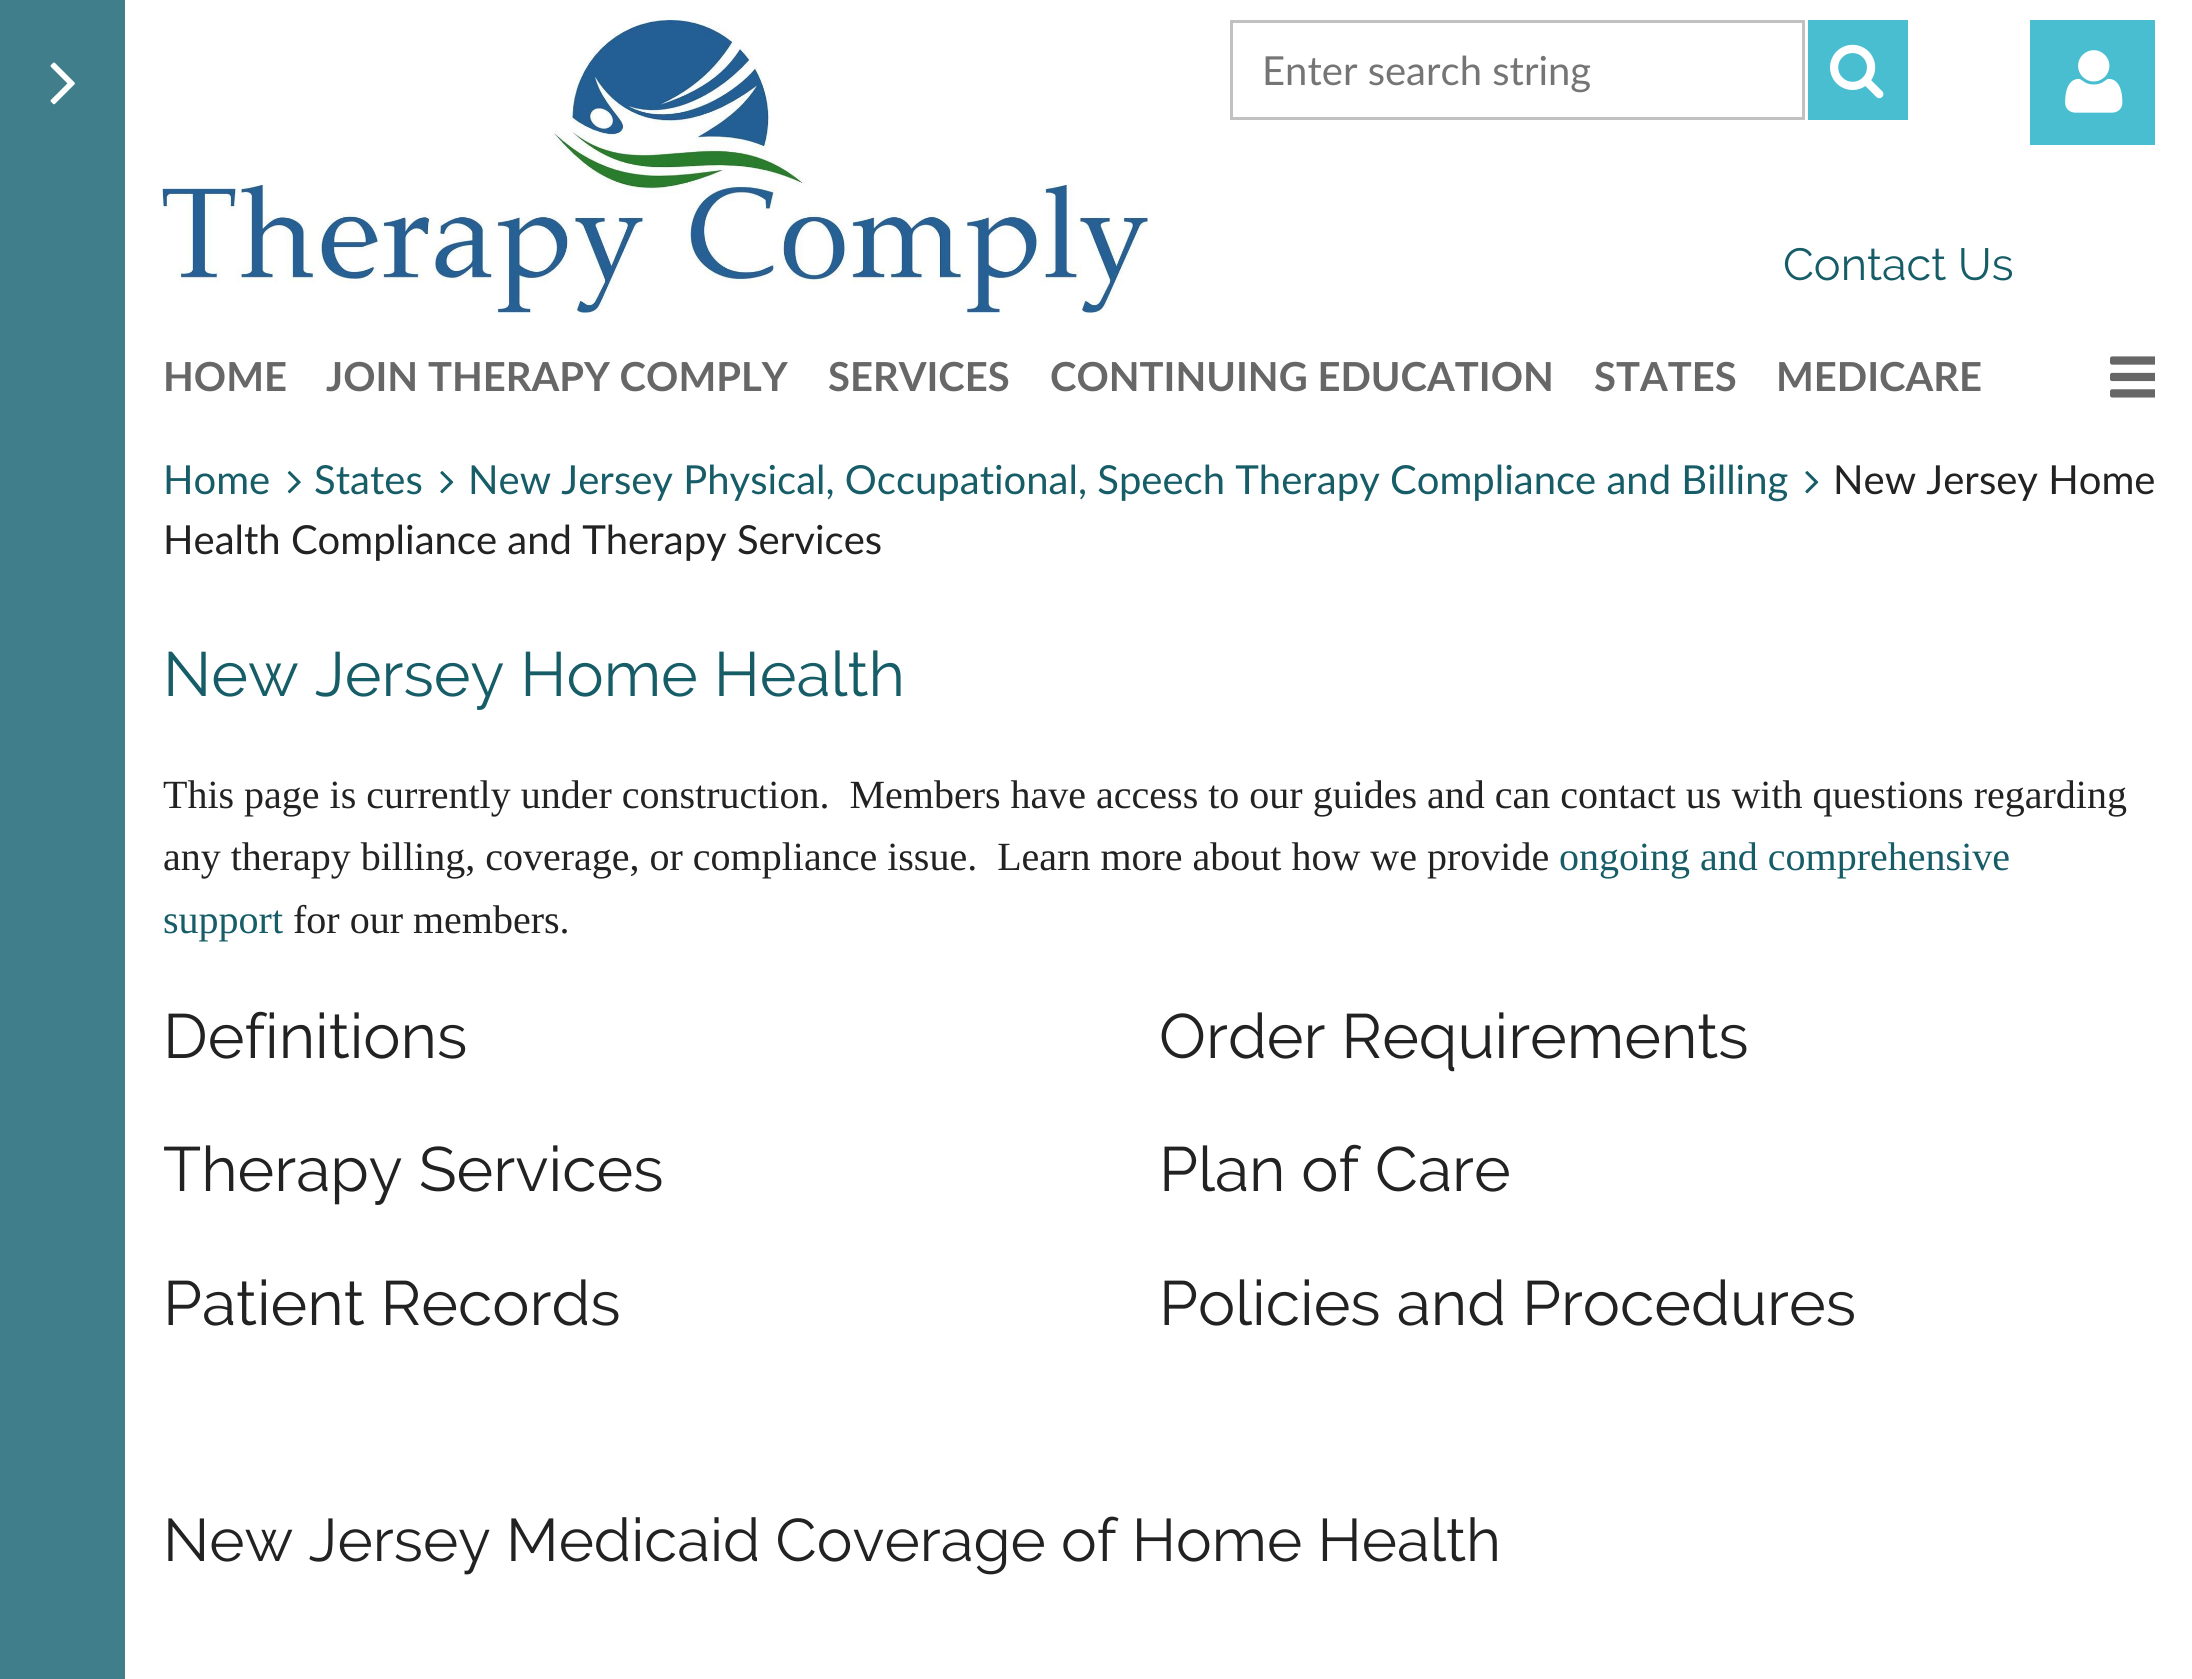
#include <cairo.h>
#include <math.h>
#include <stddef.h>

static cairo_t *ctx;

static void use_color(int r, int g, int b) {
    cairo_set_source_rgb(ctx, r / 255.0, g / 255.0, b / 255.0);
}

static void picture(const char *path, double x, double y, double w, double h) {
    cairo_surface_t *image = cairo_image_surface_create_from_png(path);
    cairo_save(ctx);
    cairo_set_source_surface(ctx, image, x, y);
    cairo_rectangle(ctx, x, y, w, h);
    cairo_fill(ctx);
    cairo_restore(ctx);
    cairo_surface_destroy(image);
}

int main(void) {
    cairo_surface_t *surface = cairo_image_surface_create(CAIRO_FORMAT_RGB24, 2192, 1679);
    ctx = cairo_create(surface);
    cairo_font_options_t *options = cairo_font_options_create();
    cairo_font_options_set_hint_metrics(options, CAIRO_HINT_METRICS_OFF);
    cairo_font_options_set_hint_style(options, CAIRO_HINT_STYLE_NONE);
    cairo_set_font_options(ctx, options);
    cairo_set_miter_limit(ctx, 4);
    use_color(255, 255, 255);
    cairo_paint(ctx);
    use_color(63, 126, 138);
    cairo_rectangle(ctx, 0, 0, 125, 1679);
    cairo_fill(ctx);
    picture("img1.png", 50, 62, 25, 43);
    picture("img2.png", 162, 20, 986, 293);
    cairo_rectangle(ctx, 1231.5, 21.5, 572, 97);
    use_color(193, 193, 193);
    cairo_set_line_width(ctx, 3);
    cairo_stroke(ctx);
    cairo_select_font_face(ctx, "Lato", CAIRO_FONT_SLANT_NORMAL, CAIRO_FONT_WEIGHT_NORMAL);
    cairo_set_font_size(ctx, 40);
    use_color(117, 117, 117);
    cairo_move_to(ctx, 1262, 85);
    cairo_show_text(ctx, "Enter search string");
    use_color(72, 190, 208);
    cairo_rectangle(ctx, 1808, 20, 100, 100);
    cairo_fill(ctx);
    picture("img3.png", 1830, 44, 54, 55);
    cairo_select_font_face(ctx, "Raleway", CAIRO_FONT_SLANT_NORMAL, CAIRO_FONT_WEIGHT_NORMAL);
    cairo_set_font_size(ctx, 45);
    use_color(23, 93, 104);
    cairo_move_to(ctx, 1783, 280);
    cairo_show_text(ctx, "Contact Us");
    use_color(72, 190, 208);
    cairo_rectangle(ctx, 2030, 20, 125, 125);
    cairo_fill(ctx);
    picture("img4.png", 2065, 50, 58, 63);
    cairo_select_font_face(ctx, "Lato", CAIRO_FONT_SLANT_NORMAL, CAIRO_FONT_WEIGHT_BOLD);
    cairo_set_font_size(ctx, 40);
    use_color(103, 103, 103);
    cairo_move_to(ctx, 163, 391);
    cairo_show_text(ctx, "HOME");
    cairo_move_to(ctx, 326, 391);
    cairo_show_text(ctx, "JOIN THERAPY COMPLY");
    cairo_move_to(ctx, 828, 391);
    cairo_show_text(ctx, "SERVICES");
    cairo_move_to(ctx, 1050, 391);
    cairo_show_text(ctx, "CONTINUING EDUCATION");
    cairo_move_to(ctx, 1594, 391);
    cairo_show_text(ctx, "STATES");
    cairo_move_to(ctx, 1776, 391);
    cairo_show_text(ctx, "MEDICARE");
    picture("img5.png", 2110, 356, 45, 42);
    cairo_select_font_face(ctx, "Lato", CAIRO_FONT_SLANT_NORMAL, CAIRO_FONT_WEIGHT_NORMAL);
    use_color(23, 93, 104);
    cairo_move_to(ctx, 163, 494);
    cairo_show_text(ctx, "Home");
    picture("img6.png", 440, 471, 14, 23);
    cairo_move_to(ctx, 468, 494);
    cairo_show_text(ctx, "New Jersey Physical, Occupational, Speech Therapy Compliance and Billing");
    picture("img6.png", 1805, 471, 14, 23);
    use_color(34, 34, 34);
    cairo_move_to(ctx, 1833, 494);
    cairo_show_text(ctx, "New Jersey Home");
    cairo_move_to(ctx, 163, 554);
    cairo_show_text(ctx, "Health Compliance and Therapy Services");
    picture("img7.png", 287, 471, 14, 23);
    use_color(23, 93, 104);
    cairo_move_to(ctx, 314, 494);
    cairo_show_text(ctx, "States");
    cairo_select_font_face(ctx, "Raleway", CAIRO_FONT_SLANT_NORMAL, CAIRO_FONT_WEIGHT_NORMAL);
    cairo_set_font_size(ctx, 62.5);
    cairo_move_to(ctx, 163, 696);
    cairo_show_text(ctx, "New Jersey Home Health");
    cairo_select_font_face(ctx, "Liberation Serif", CAIRO_FONT_SLANT_NORMAL, CAIRO_FONT_WEIGHT_NORMAL);
    cairo_set_font_size(ctx, 40);
    use_color(34, 34, 34);
    cairo_move_to(ctx, 163, 808);
    cairo_show_text(ctx, "This page is currently under construction.  Members have access to our guides and can contact us with questions regarding");
    cairo_move_to(ctx, 163, 870);
    cairo_show_text(ctx, "any therapy billing, coverage, or compliance issue.  Learn more about how we provide");
    use_color(23, 93, 104);
    cairo_move_to(ctx, 1559, 870);
    cairo_show_text(ctx, "ongoing and comprehensive");
    cairo_move_to(ctx, 163, 933);
    cairo_show_text(ctx, "support");
    use_color(34, 34, 34);
    cairo_move_to(ctx, 293, 933);
    cairo_show_text(ctx, "for our members.");
    cairo_select_font_face(ctx, "Raleway", CAIRO_FONT_SLANT_NORMAL, CAIRO_FONT_WEIGHT_NORMAL);
    cairo_set_font_size(ctx, 62.5);
    cairo_move_to(ctx, 163, 1058);
    cairo_show_text(ctx, "Definitions");
    cairo_move_to(ctx, 163, 1191);
    cairo_show_text(ctx, "Therapy Services");
    cairo_move_to(ctx, 163, 1325);
    cairo_show_text(ctx, "Patient Records");
    cairo_move_to(ctx, 1159, 1058);
    cairo_show_text(ctx, "Order Requirements");
    cairo_move_to(ctx, 1159, 1191);
    cairo_show_text(ctx, "Plan of Care");
    cairo_move_to(ctx, 1159, 1325);
    cairo_show_text(ctx, "Policies and Procedures");
    cairo_set_font_size(ctx, 60);
    cairo_move_to(ctx, 163, 1561);
    cairo_show_text(ctx, "New Jersey Medicaid Coverage of Home Health");
    cairo_surface_write_to_png(surface, "result.png");
    cairo_font_options_destroy(options);
    cairo_destroy(ctx);
    cairo_surface_destroy(surface);
    return 0;
}
